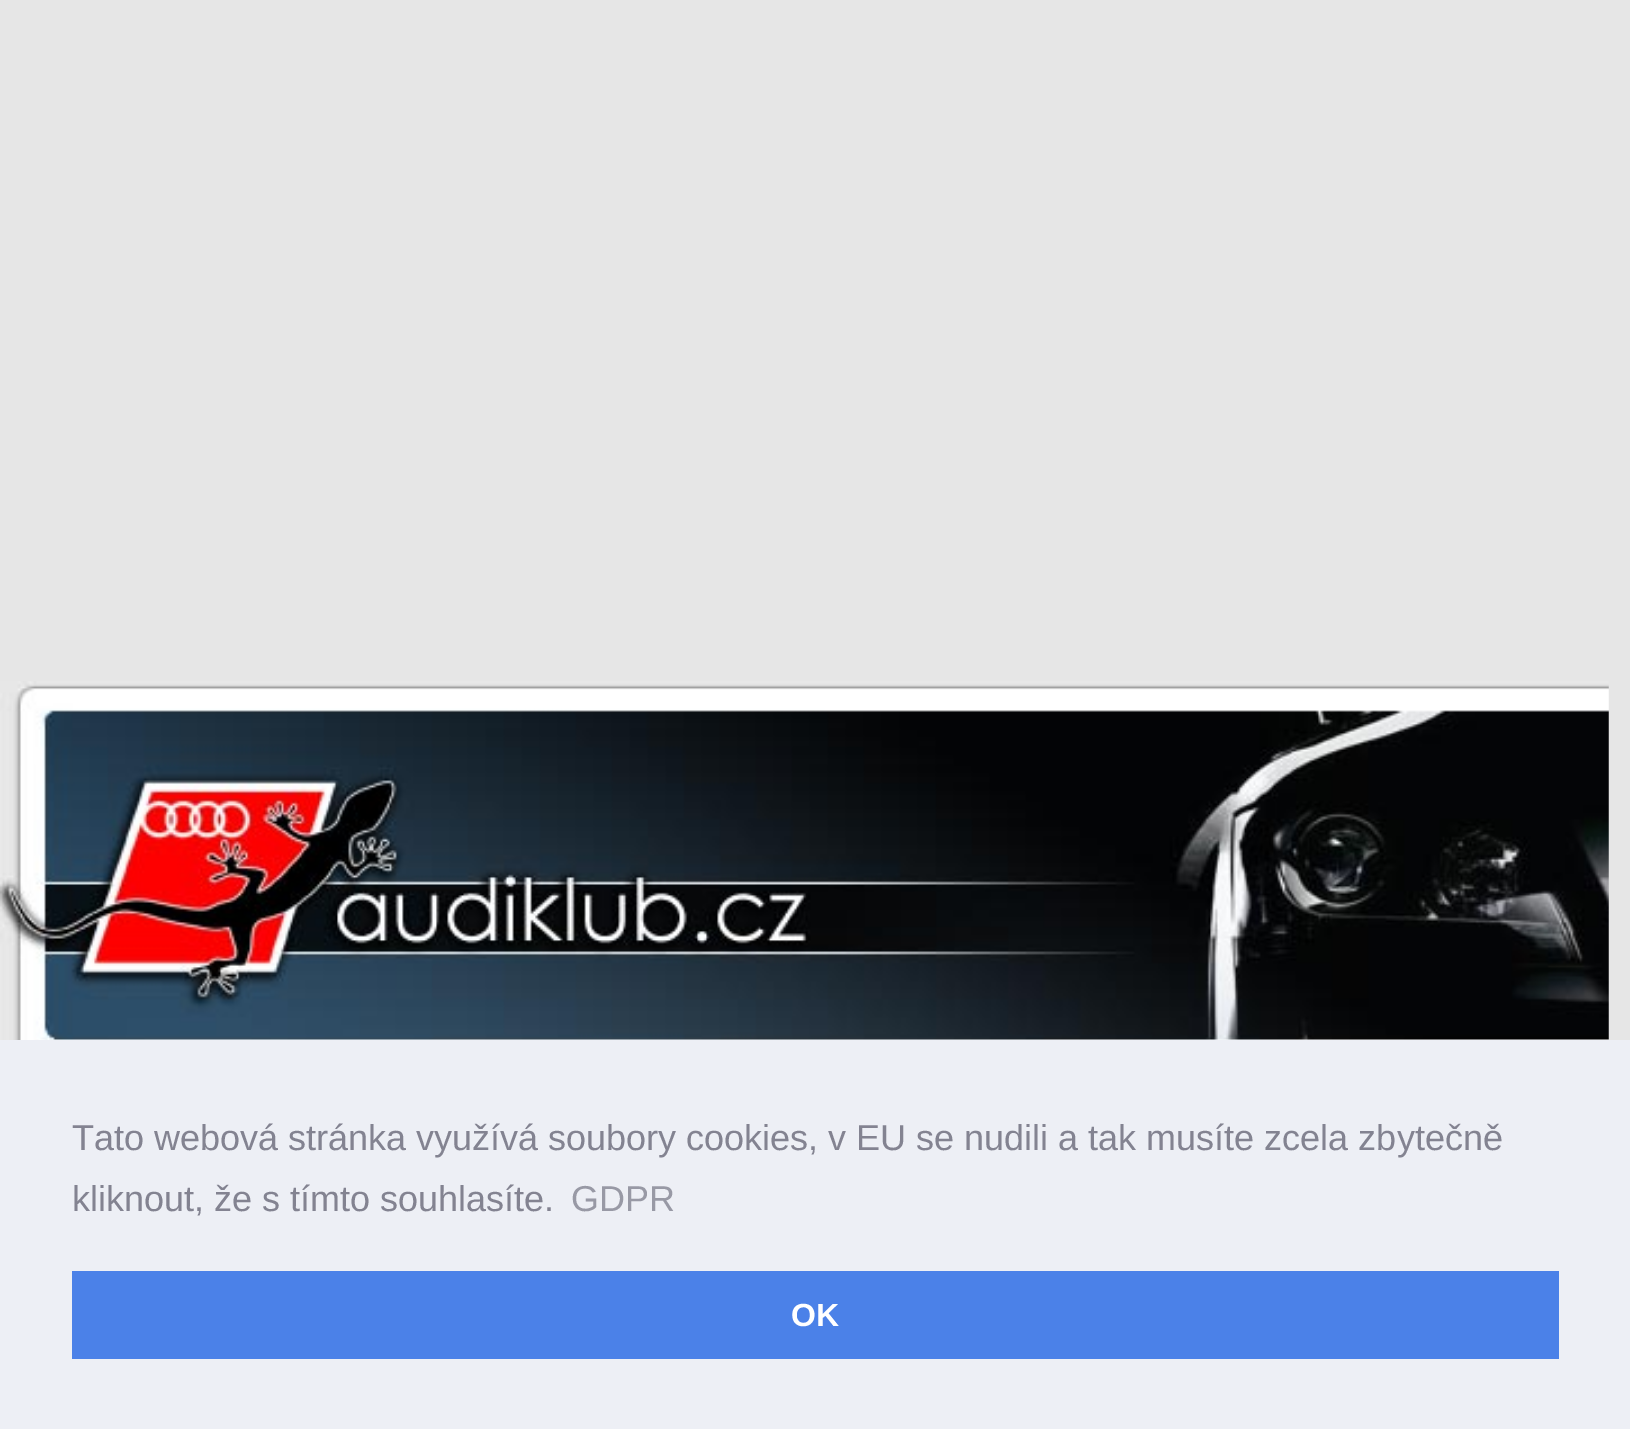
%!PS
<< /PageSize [1630 1429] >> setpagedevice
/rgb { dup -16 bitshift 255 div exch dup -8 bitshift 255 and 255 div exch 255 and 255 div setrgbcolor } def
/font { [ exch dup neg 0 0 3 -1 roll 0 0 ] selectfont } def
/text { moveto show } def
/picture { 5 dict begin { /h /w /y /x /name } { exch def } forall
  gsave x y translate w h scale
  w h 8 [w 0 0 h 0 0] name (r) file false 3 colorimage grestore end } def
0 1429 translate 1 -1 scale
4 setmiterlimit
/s1 { /LiberationSans-Regular 36 font 16#838391 rgb } def
/s2 { /LiberationSans-Regular 36 font 16#9899A5 rgb } def
/s3 { /LiberationSans-Bold 32 font 16#FFFFFF rgb } def
16#E6E6E6 rgb
0 0 1630 1429 rectfill
(pic1.raw) 0 681 1609 359 picture
16#EDEFF5 rgb
0 1040 1630 389 rectfill
s1
(Tato webová stránka využívá soubory cookies, v EU se nudili a tak musíte zcela zbytečně) 72 1150 text
(kliknout, že s tímto souhlasíte.) 72 1211 text
s2
(GDPR) 571 1211 text
16#4B81E8 rgb
72 1271 1487 88 rectfill
s3
(OK) 791 1326 text
showpage
